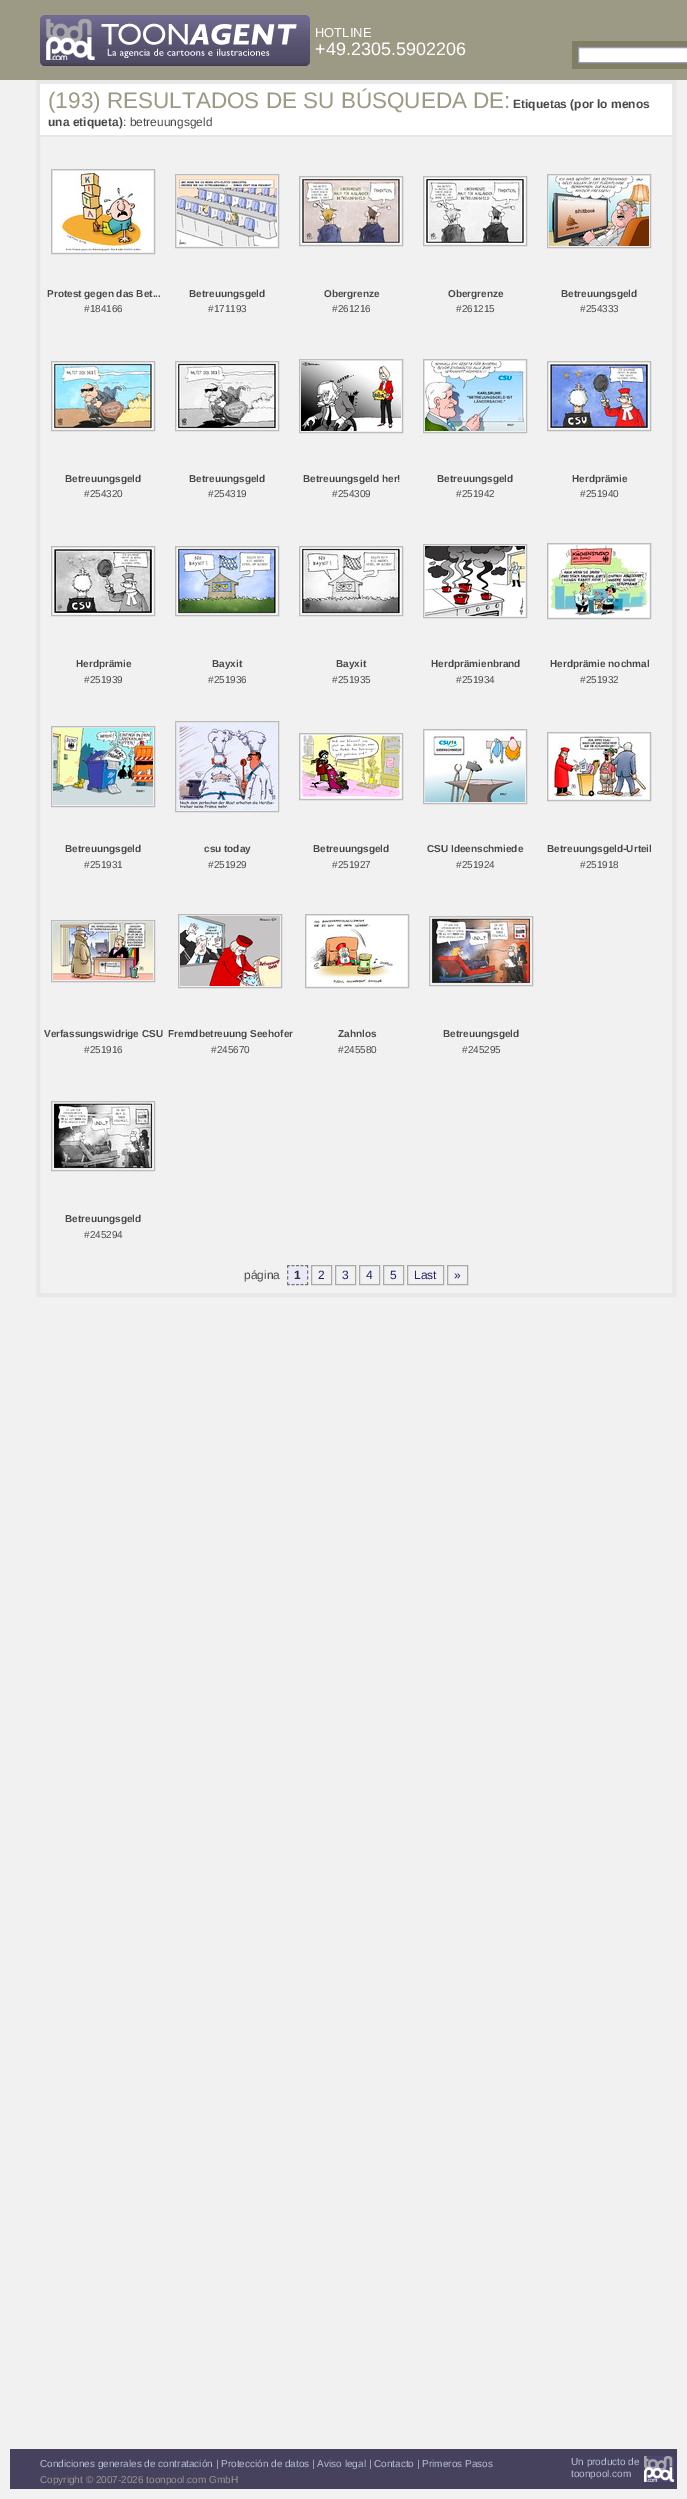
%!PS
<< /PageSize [687 2499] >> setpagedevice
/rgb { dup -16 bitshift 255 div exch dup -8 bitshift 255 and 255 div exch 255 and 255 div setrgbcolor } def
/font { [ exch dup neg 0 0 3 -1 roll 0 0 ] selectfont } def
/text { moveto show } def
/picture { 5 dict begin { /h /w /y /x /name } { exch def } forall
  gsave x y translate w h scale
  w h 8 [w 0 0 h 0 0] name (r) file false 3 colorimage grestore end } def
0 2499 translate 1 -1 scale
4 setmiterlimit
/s1 { /LiberationSans-Regular 13 font 16#FFFFFF rgb } def
/s2 { /LiberationSans-Regular 18 font 16#FFFFFF rgb } def
/s3 { /LiberationSans-Regular 22.5 font 16#9C9984 rgb } def
/s4 { /LiberationSans-Bold 12 font 16#494949 rgb } def
/s5 { /LiberationSans-Regular 12 font 16#494949 rgb } def
/s6 { /LiberationSans-Bold 10 font 16#494949 rgb } def
/s7 { /LiberationSans-Regular 10 font 16#494949 rgb } def
/s8 { /LiberationSans-Bold 12 font 16#333333 rgb } def
/s9 { /LiberationSans-Regular 12 font 16#1D246C rgb } def
/s10 { /LiberationSans-Regular 10 font 16#B6C2D8 rgb } def
/s11 { /LiberationSans-Regular 10 font 16#999999 rgb } def
16#F1F1F1 rgb
0 0 687 2499 rectfill
16#9C9984 rgb
0 0 687 80 rectfill
(pic1.raw) 40 15 270 51 picture
s1
(HOTLINE) 315 37 text
s2
(+49.2305.5902206) 315 55 text
16#827E63 rgb
572 41 115 28 rectfill
16#FFFFFF rgb
578.5 47.5 moveto 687.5 47.5 lineto 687.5 62.5 lineto 578.5 62.5 lineto closepath gsave fill grestore
16#999CBB rgb
stroke
16#E8E8E8 rgb
4 setlinewidth
38 82 636 1213 rectstroke
16#FFFFFF rgb
40 84 632 51 rectfill
s3
(\(193\) RESULTADOS DE SU BÚSQUEDA DE:) 48 108 text
s4
(Etiquetas \(por lo menos) 513 108 text
(una etiqueta\)) 48 126 text
s5
(: betreuungsgeld) 123 126 text
16#E8E8E8 rgb
40 135 632 2 rectfill
16#BBBBBB rgb
1 setlinewidth
51.5 169.5 103 84 rectstroke
(pic2.raw) 53 171 100 81 picture
s6
(Protest gegen das Bet...) 47 297 text
s7
(#184166) 84 312 text
16#BBBBBB rgb
175.5 174.5 103 73 rectstroke
(pic3.raw) 177 176 100 70 picture
s6
(Betreuungsgeld) 189 297 text
s7
(#171193) 208 312 text
16#BBBBBB rgb
299.5 176.5 103 69 rectstroke
(pic4.raw) 301 178 100 66 picture
s6
(Obergrenze) 324 297 text
s7
(#261216) 332 312 text
16#BBBBBB rgb
423.5 176.5 103 69 rectstroke
(pic5.raw) 425 178 100 66 picture
s6
(Obergrenze) 448 297 text
s7
(#261215) 456 312 text
16#BBBBBB rgb
547.5 174.5 103 73 rectstroke
(pic6.raw) 549 176 100 70 picture
s6
(Betreuungsgeld) 561 297 text
s7
(#254333) 580 312 text
16#BBBBBB rgb
51.5 361.5 103 69 rectstroke
(pic7.raw) 53 363 100 66 picture
s6
(Betreuungsgeld) 65 482 text
s7
(#254320) 84 497 text
16#BBBBBB rgb
175.5 361.5 103 69 rectstroke
(pic8.raw) 177 363 100 66 picture
s6
(Betreuungsgeld) 189 482 text
s7
(#254319) 208 497 text
16#BBBBBB rgb
299.5 359.5 103 73 rectstroke
(pic9.raw) 301 361 100 70 picture
s6
(Betreuungsgeld her!) 303 482 text
s7
(#254309) 332 497 text
16#BBBBBB rgb
423.5 359.5 103 73 rectstroke
(pic10.raw) 425 361 100 70 picture
s6
(Betreuungsgeld) 437 482 text
s7
(#251942) 456 497 text
16#BBBBBB rgb
547.5 361.5 103 69 rectstroke
(pic11.raw) 549 363 100 66 picture
s6
(Herdprämie) 572 482 text
s7
(#251940) 580 497 text
16#BBBBBB rgb
51.5 546.5 103 69 rectstroke
(pic12.raw) 53 548 100 66 picture
s6
(Herdprämie) 76 667 text
s7
(#251939) 84 683 text
16#BBBBBB rgb
175.5 546.5 103 69 rectstroke
(pic13.raw) 177 548 100 66 picture
s6
(Bayxit) 212 667 text
s7
(#251936) 208 683 text
16#BBBBBB rgb
299.5 546.5 103 69 rectstroke
(pic14.raw) 301 548 100 66 picture
s6
(Bayxit) 336 667 text
s7
(#251935) 332 683 text
16#BBBBBB rgb
423.5 544.5 103 73 rectstroke
(pic15.raw) 425 546 100 70 picture
s6
(Herdprämienbrand) 431 667 text
s7
(#251934) 456 683 text
16#BBBBBB rgb
547.5 543.5 103 75 rectstroke
(pic16.raw) 549 545 100 72 picture
s6
(Herdprämie nochmal) 550 667 text
s7
(#251932) 580 683 text
16#BBBBBB rgb
51.5 726.5 103 80 rectstroke
(pic17.raw) 53 728 100 77 picture
s6
(Betreuungsgeld) 65 852 text
s7
(#251931) 84 868 text
16#BBBBBB rgb
175.5 721.5 103 90 rectstroke
(pic18.raw) 177 723 100 87 picture
s6
(csu today) 204 852 text
s7
(#251929) 208 868 text
16#BBBBBB rgb
299.5 733.5 103 66 rectstroke
(pic19.raw) 301 735 100 63 picture
s6
(Betreuungsgeld) 313 852 text
s7
(#251927) 332 868 text
16#BBBBBB rgb
423.5 729.5 103 74 rectstroke
(pic20.raw) 425 731 100 71 picture
s6
(CSU Ideenschmiede) 427 852 text
s7
(#251924) 456 868 text
16#BBBBBB rgb
547.5 732.5 103 68 rectstroke
(pic21.raw) 549 734 100 65 picture
s6
(Betreuungsgeld-Urteil) 547 852 text
s7
(#251918) 580 868 text
16#BBBBBB rgb
51.5 920.5 103 61 rectstroke
(pic22.raw) 53 922 100 58 picture
s6
(Verfassungswidrige CSU) 44 1037 text
s7
(#251916) 84 1053 text
16#BBBBBB rgb
178.5 914.5 103 73 rectstroke
(pic23.raw) 180 916 100 70 picture
s6
(Fremdbetreuung Seehofer) 168 1037 text
s7
(#245670) 211 1053 text
16#BBBBBB rgb
305.5 914.5 103 73 rectstroke
(pic24.raw) 307 916 100 70 picture
s6
(Zahnlos) 338 1037 text
s7
(#245580) 338 1053 text
16#BBBBBB rgb
429.5 916.5 103 69 rectstroke
(pic25.raw) 431 918 100 66 picture
s6
(Betreuungsgeld) 443 1037 text
s7
(#245295) 462 1053 text
16#BBBBBB rgb
51.5 1101.5 103 69 rectstroke
(pic26.raw) 53 1103 100 66 picture
s6
(Betreuungsgeld) 65 1222 text
s7
(#245294) 84 1238 text
s5
(página) 244 1279 text
16#E9EAF5 rgb
287 1265 21 20 rectfill
s8
(1) 294 1279 text
16#777777 rgb
[3 1.5] 0 setdash
287 1265.5 moveto 308 1265.5 lineto stroke
[3 2.67] 0 setdash
307.5 1265 moveto 307.5 1285 lineto stroke
[3 1.5] 0 setdash
287 1284.5 moveto 308 1284.5 lineto stroke
[3 2.67] 0 setdash
287.5 1265 moveto 287.5 1285 lineto stroke
16#AAAAAA rgb
[] 0 setdash
311.5 1265.5 20 19 rectstroke
s9
(2) 318 1279 text
16#AAAAAA rgb
335.5 1265.5 20 19 rectstroke
s9
(3) 342 1279 text
16#AAAAAA rgb
359.5 1265.5 20 19 rectstroke
s9
(4) 366 1279 text
16#AAAAAA rgb
383.5 1265.5 20 19 rectstroke
s9
(5) 390 1279 text
16#AAAAAA rgb
407.5 1265.5 36 19 rectstroke
s9
(Last) 414 1279 text
16#AAAAAA rgb
447.5 1265.5 20 19 rectstroke
s9
(») 454 1279 text
16#46415C rgb
10 2449 667 40 rectfill
s10
(Condiciones generales de contratación | Protección de datos | Aviso legal | Contacto | Primeros Pasos) 40 2467 text
s11
(Copyright © 2007-2026 toonpool.com GmbH) 40 2483 text
s10
(Un producto de) 571 2465 text
(pic27.raw) 644 2456 30 26 picture
(toonpool.com) 571 2477 text
showpage
